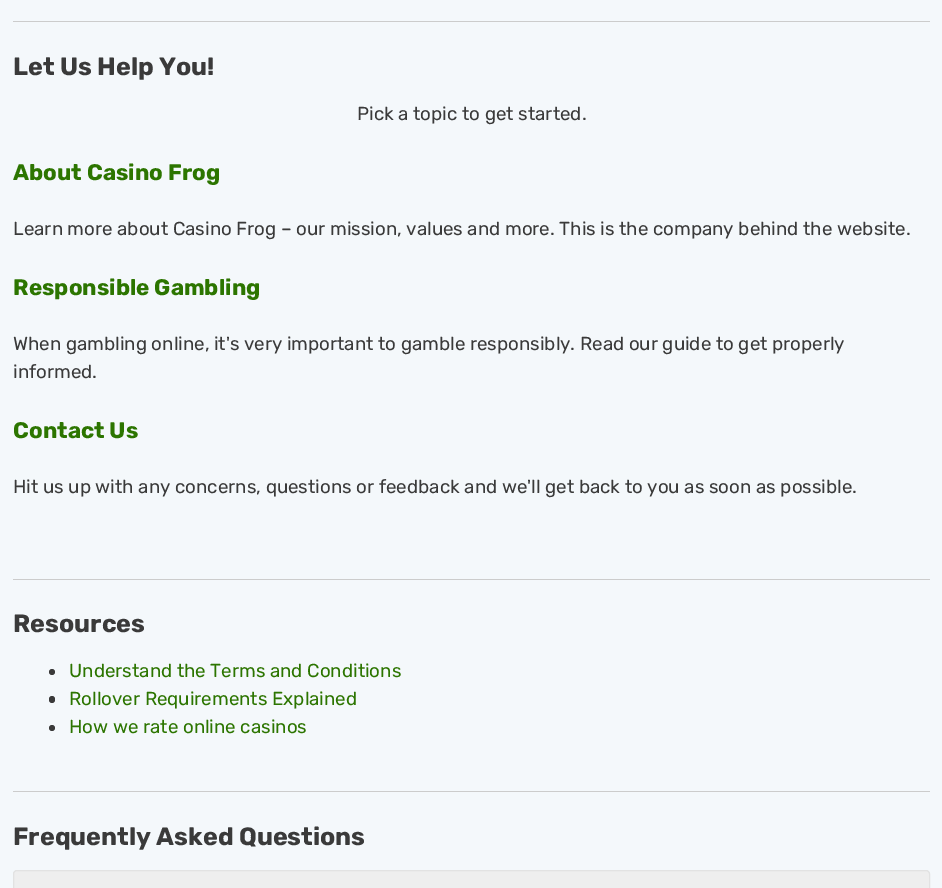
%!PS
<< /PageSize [942 888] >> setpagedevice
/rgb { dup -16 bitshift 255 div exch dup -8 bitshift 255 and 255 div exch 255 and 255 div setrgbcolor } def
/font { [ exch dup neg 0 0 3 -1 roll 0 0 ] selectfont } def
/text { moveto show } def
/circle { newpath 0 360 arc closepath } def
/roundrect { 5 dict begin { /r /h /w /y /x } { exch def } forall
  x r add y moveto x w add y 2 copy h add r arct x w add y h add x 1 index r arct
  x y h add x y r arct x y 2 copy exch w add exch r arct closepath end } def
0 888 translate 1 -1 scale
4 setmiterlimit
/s1 { /Rubik-Bold 25 font 16#3A3A3A rgb } def
/s2 { /Rubik-Regular 18.75 font 16#3A3A3A rgb } def
/s3 { /Rubik-Bold 22.5 font 16#2C7500 rgb } def
/s4 { /Rubik-Regular 18.75 font 16#2C7500 rgb } def
16#F4F8FB rgb
0 0 942 888 rectfill
16#CCCCCC rgb
13 21 917 1 rectfill
s1
(Let Us Help You!) 13 75 text
s2
(Pick a topic to get started.) 357 120 text
s3
(About Casino Frog) 13 180 text
s2
(Learn more about Casino Frog – our mission, values and more. This is the company behind the website.) 13 235 text
s3
(Responsible Gambling) 13 295 text
s2
(When gambling online, it's very important to gamble responsibly. Read our guide to get properly) 13 350 text
(informed.) 13 378 text
s3
(Contact Us) 13 438 text
s2
(Hit us up with any concerns, questions or feedback and we'll get back to you as soon as possible.) 13 493 text
16#CCCCCC rgb
13 579 917 1 rectfill
s1
(Resources) 13 632 text
52 672 3 circle fill
s4
(Understand the Terms and Conditions) 69 677 text
16#3A3A3A rgb
49 696 6 7 3 roundrect fill
s4
(Rollover Requirements Explained) 69 705 text
16#3A3A3A rgb
52 728 3 circle fill
s4
(How we rate online casinos) 69 733 text
16#CCCCCC rgb
13 791 917 1 rectfill
s1
(Frequently Asked Questions) 13 845 text
16#EEEEEE rgb
13.5 870.5 916 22 3.5 roundrect gsave fill grestore
16#E2E2E2 rgb
stroke
showpage
